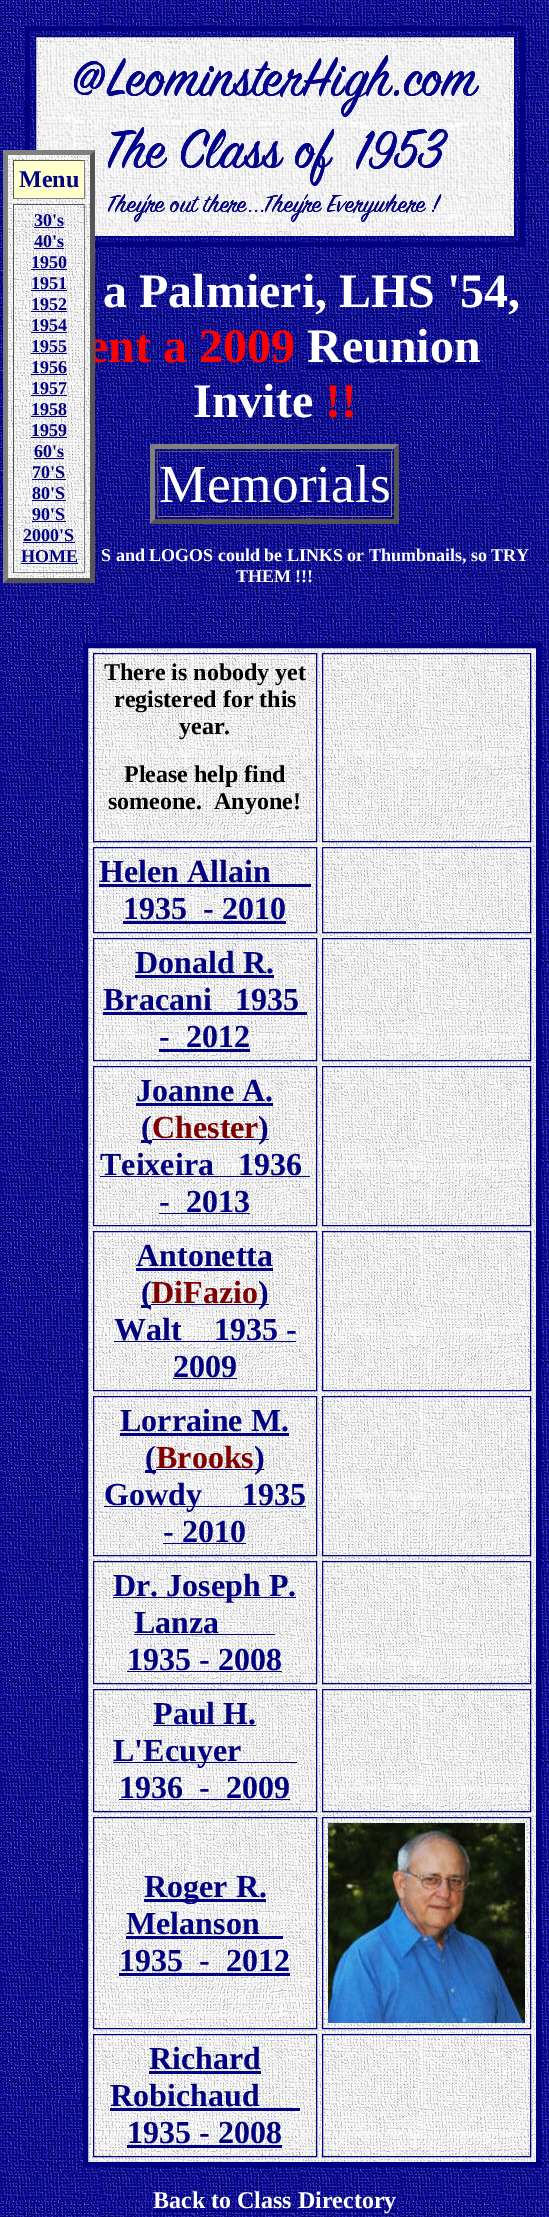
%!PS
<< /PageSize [549 2217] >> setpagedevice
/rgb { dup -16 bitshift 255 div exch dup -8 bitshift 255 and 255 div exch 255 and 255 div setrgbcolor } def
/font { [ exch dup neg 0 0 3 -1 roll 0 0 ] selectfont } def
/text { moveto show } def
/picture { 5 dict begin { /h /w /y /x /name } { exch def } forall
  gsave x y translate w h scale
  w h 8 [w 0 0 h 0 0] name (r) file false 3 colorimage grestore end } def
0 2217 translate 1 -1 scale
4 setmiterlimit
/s1 { /LiberationSerif-Bold 48 font 16#FF0000 rgb } def
/s2 { /LiberationSerif-Bold 24 font 16#000080 rgb } def
/s3 { /LiberationSerif-Bold 18 font 16#000080 rgb } def
/s4 { /LiberationSerif-Bold 48 font 16#FFFFFF rgb } def
/s5 { /LiberationSerif-Regular 53.5 font 16#FFFFFF rgb } def
/s6 { /LiberationSerif-Bold 18 font 16#FFFFFF rgb } def
/s7 { /LiberationSerif-Bold 24 font 16#000000 rgb } def
/s8 { /LiberationSerif-Bold 32 font 16#000080 rgb } def
/s9 { /LiberationSerif-Bold 32 font 16#800000 rgb } def
/s10 { /LiberationSerif-Bold 24 font 16#FFFFFF rgb } def
16#FFFFFF rgb
0 0 549 2217 rectfill
(pic1.raw) 0 0 549 2217 picture
16#000080 rgb
5 setlinewidth
27.5 28.5 495 216 rectstroke
(pic2.raw) 36 37 478 199 picture
1 setlinewidth
35.5 36.5 479 200 rectstroke
(pic3.raw) 41 42 468 189 picture
s1
(ent a 2009) 87 362 text
(pic4.raw) 3 150 92 433 picture
16#808080 rgb
3 150 moveto 95 150 lineto 90 155 lineto 8 155 lineto closepath fill
16#555555 rgb
95 150 moveto 95 583 lineto 90 578 lineto 90 155 lineto closepath fill
95 583 moveto 3 583 lineto 8 578 lineto 90 578 lineto closepath fill
16#808080 rgb
3 583 moveto 3 150 lineto 8 155 lineto 8 578 lineto closepath fill
16#FFFFCC rgb
14 161 70 37 rectfill
16#555555 rgb
13 160 72 1 rectfill
16#808080 rgb
84 160 1 39 rectfill
13 198 72 1 rectfill
16#555555 rgb
13 160 1 39 rectfill
s2
(Menu) 19 187 text
(pic5.raw) 14 205 70 367 picture
16#555555 rgb
13 204 72 1 rectfill
16#808080 rgb
84 204 1 369 rectfill
13 572 72 1 rectfill
16#555555 rgb
13 204 1 369 rectfill
s3
(30's) 34 226 text
34 227 30 1 rectfill
(40's) 34 247 text
34 248 30 1 rectfill
(1950) 31 268 text
31 269 36 1 rectfill
(1951) 31 289 text
31 290 36 1 rectfill
(1952) 31 310 text
31 311 36 1 rectfill
(1954) 31 331 text
31 332 36 1 rectfill
(1955) 31 352 text
31 353 36 1 rectfill
(1956) 31 373 text
31 374 36 1 rectfill
(1957) 31 394 text
31 395 36 1 rectfill
(1958) 31 415 text
31 416 36 1 rectfill
(1959) 31 436 text
31 437 36 1 rectfill
(60's) 34 457 text
34 458 30 1 rectfill
(70'S) 32 478 text
32 479 34 1 rectfill
(80'S) 32 499 text
32 500 34 1 rectfill
(90'S) 32 520 text
32 521 34 1 rectfill
(2000'S) 23 541 text
23 542 52 1 rectfill
(HOME) 21 562 text
21 563 57 1 rectfill
s4
(a Palmieri, LHS '54,) 103 307 text
(Reunion) 307 362 text
16#000080 rgb
307 365 174 4 rectfill
s4
(Invite) 193 417 text
16#000080 rgb
193 418 120 1 rectfill
s1
(!!) 325 417 text
16#808080 rgb
150 444 moveto 399 444 lineto 394 449 lineto 155 449 lineto closepath fill
16#555555 rgb
399 444 moveto 399 524 lineto 394 519 lineto 394 449 lineto closepath fill
399 524 moveto 150 524 lineto 155 519 lineto 394 519 lineto closepath fill
16#808080 rgb
150 524 moveto 150 444 lineto 155 449 lineto 155 519 lineto closepath fill
16#555555 rgb
157 451 235 1 rectfill
16#808080 rgb
391 451 1 66 rectfill
157 516 235 1 rectfill
16#555555 rgb
157 451 1 66 rectfill
s5
(Memorials) 159 502 text
16#000080 rgb
159 503 231 1 rectfill
s6
(S and LOGOS could be LINKS or Thumbnails, so TRY) 101 561 text
(THEM !!!) 236 582 text
(pic6.raw) 88 648 448 1514 picture
16#000080 rgb
5 setlinewidth
85.5 645.5 453 1519 rectstroke
(pic7.raw) 94 654 222 187 picture
1 setlinewidth
93.5 653.5 223 188 rectstroke
s7
(There is nobody yet) 104 680 text
(registered for this) 114 707 text
(year.) 179 734 text
(Please help find) 124 782 text
(someone.  Anyone!) 108 809 text
(pic8.raw) 323 654 207 187 picture
16#000080 rgb
322.5 653.5 208 188 rectstroke
(pic9.raw) 94 848 222 84 picture
93.5 847.5 223 85 rectstroke
s8
(Helen Allain) 99 882 text
99 884 212 3 rectfill
(1935  - 2010) 123 919 text
123 921 163 3 rectfill
(pic10.raw) 323 848 207 84 picture
322.5 847.5 208 85 rectstroke
(pic11.raw) 94 939 222 121 picture
93.5 938.5 223 122 rectstroke
(Donald R.) 135 973 text
135 975 139 3 rectfill
(Bracani   1935) 103 1010 text
103 1012 204 3 rectfill
(-  2012) 159 1047 text
159 1049 91 3 rectfill
(pic12.raw) 323 939 207 121 picture
322.5 938.5 208 122 rectstroke
(pic13.raw) 94 1067 222 158 picture
93.5 1066.5 223 159 rectstroke
(Joanne A.) 136 1101 text
136 1103 137 3 rectfill
141 1140 11 3 rectfill
(\() 141 1138 text
s9
(Chester) 152 1138 text
16#000080 rgb
152 1139 117 1 rectfill
(\)) 258 1138 text
(Teixeira   1936) 100 1175 text
100 1176 210 1 rectfill
(-  2013) 159 1212 text
159 1213 91 1 rectfill
(pic14.raw) 323 1067 207 158 picture
322.5 1066.5 208 159 rectstroke
(pic13.raw) 94 1232 222 158 picture
93.5 1231.5 223 159 rectstroke
(Antonetta) 136 1266 text
136 1268 137 3 rectfill
141 1305 10 3 rectfill
(\() 141 1303 text
151 1304 118 1 rectfill
s9
(DiFazio) 151 1303 text
s8
(\)) 258 1303 text
(Walt    1935 -) 114 1340 text
114 1341 182 1 rectfill
(2009) 173 1377 text
173 1378 64 1 rectfill
(pic14.raw) 323 1232 207 158 picture
322.5 1231.5 208 159 rectstroke
(pic13.raw) 94 1397 222 158 picture
93.5 1396.5 223 159 rectstroke
(Lorraine M.) 120 1431 text
120 1433 169 3 rectfill
145 1470 11 3 rectfill
(\() 145 1468 text
s9
(Brooks) 156 1468 text
16#000080 rgb
156 1469 108 1 rectfill
(\)) 254 1468 text
104 1506 202 1 rectfill
(Gowdy     1935) 104 1505 text
(- 2010) 163 1542 text
163 1543 83 1 rectfill
(pic14.raw) 323 1397 207 158 picture
322.5 1396.5 208 159 rectstroke
(pic11.raw) 94 1562 222 121 picture
93.5 1561.5 223 122 rectstroke
113 1597 183 1 rectfill
(Dr. Joseph P.) 113 1596 text
(Lanza) 134 1633 text
134 1634 141 1 rectfill
(1935 - 2008) 127 1670 text
127 1671 155 1 rectfill
(pic12.raw) 323 1562 207 121 picture
322.5 1561.5 208 122 rectstroke
(pic11.raw) 94 1690 222 121 picture
93.5 1689.5 223 122 rectstroke
(Paul H.) 153 1724 text
153 1725 103 1 rectfill
113 1762 184 1 rectfill
(L'Ecuyer) 113 1761 text
(1936  -  2009) 119 1798 text
119 1799 171 1 rectfill
(pic12.raw) 323 1690 207 121 picture
322.5 1689.5 208 122 rectstroke
(pic15.raw) 94 1818 222 210 picture
93.5 1817.5 223 211 rectstroke
144 1899 122 3 rectfill
(Roger R.) 144 1897 text
(Melanson) 126 1934 text
126 1936 157 3 rectfill
(1935  -) 119 1971 text
119 1973 171 3 rectfill
(2012) 226 1971 text
(pic16.raw) 323 1818 207 210 picture
322.5 1817.5 208 211 rectstroke
(pic17.raw) 328 1823 197 200 picture
(pic11.raw) 94 2035 222 121 picture
93.5 2034.5 223 122 rectstroke
(Richard) 149 2069 text
149 2071 112 3 rectfill
(Robichaud) 110 2106 text
110 2108 190 3 rectfill
(1935 - 2008) 127 2143 text
127 2145 155 3 rectfill
(pic12.raw) 323 2035 207 121 picture
322.5 2034.5 208 122 rectstroke
153 2210 243 2 rectfill
s10
(Back to Class Directory) 153 2208 text
showpage
